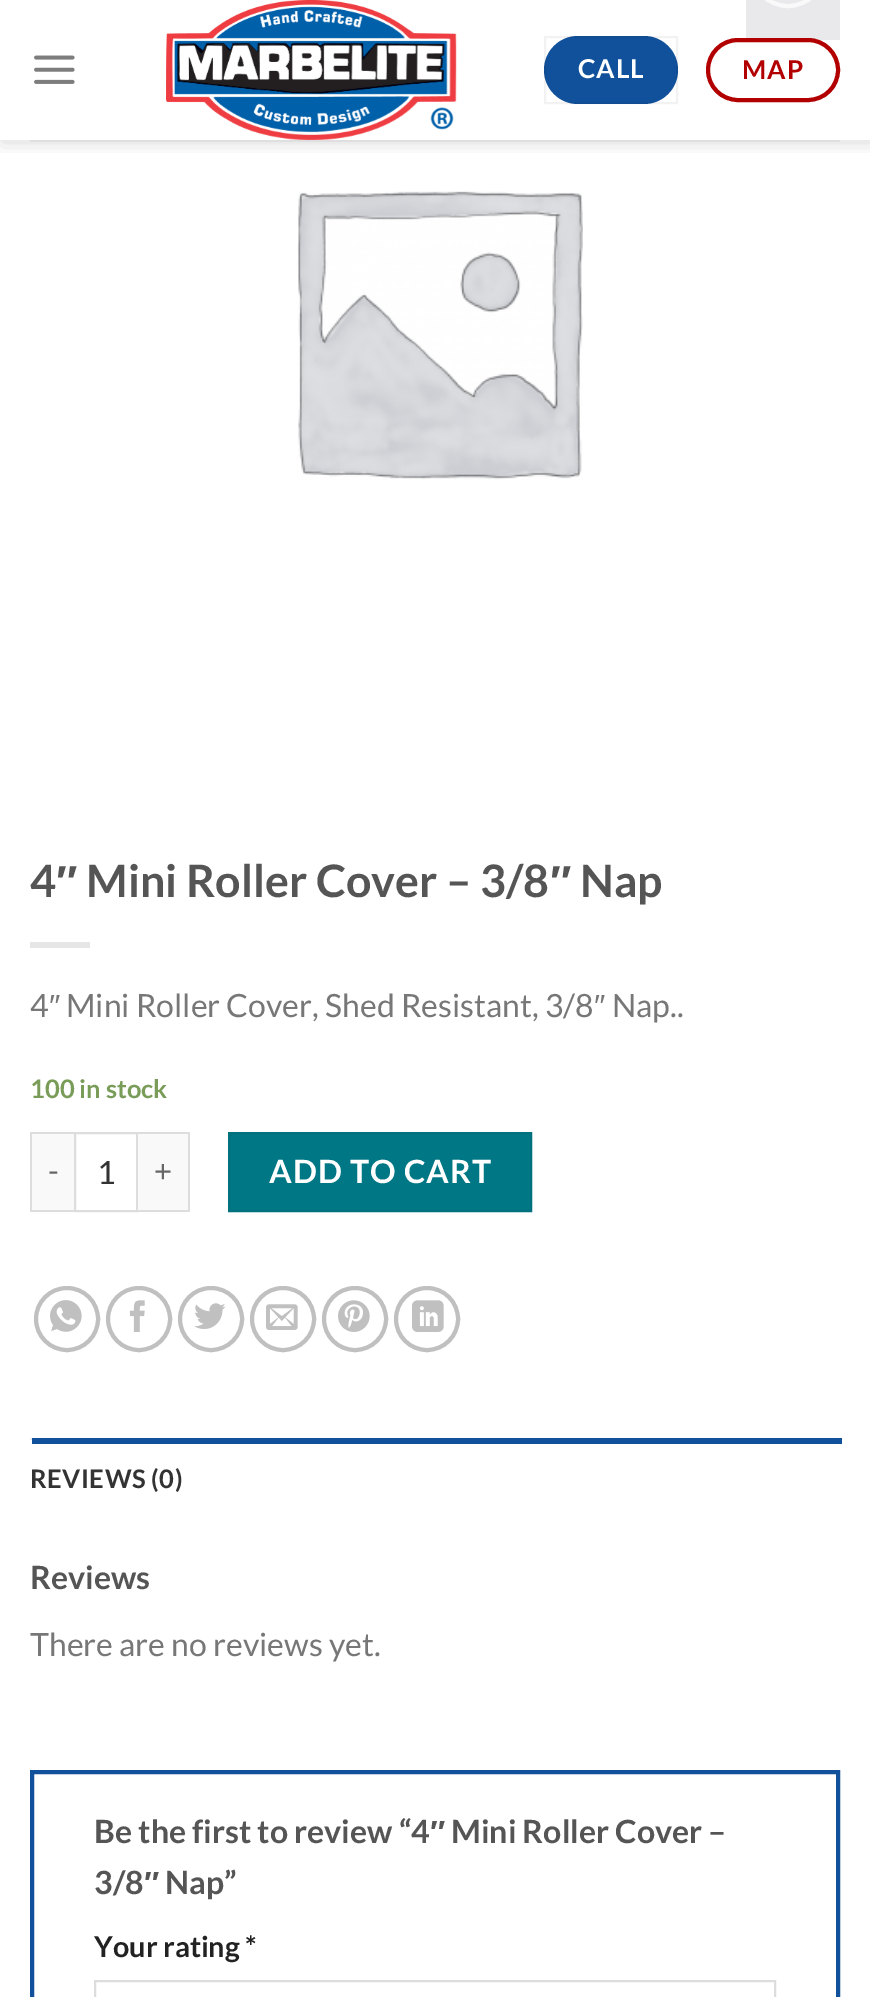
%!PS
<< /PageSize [870 1997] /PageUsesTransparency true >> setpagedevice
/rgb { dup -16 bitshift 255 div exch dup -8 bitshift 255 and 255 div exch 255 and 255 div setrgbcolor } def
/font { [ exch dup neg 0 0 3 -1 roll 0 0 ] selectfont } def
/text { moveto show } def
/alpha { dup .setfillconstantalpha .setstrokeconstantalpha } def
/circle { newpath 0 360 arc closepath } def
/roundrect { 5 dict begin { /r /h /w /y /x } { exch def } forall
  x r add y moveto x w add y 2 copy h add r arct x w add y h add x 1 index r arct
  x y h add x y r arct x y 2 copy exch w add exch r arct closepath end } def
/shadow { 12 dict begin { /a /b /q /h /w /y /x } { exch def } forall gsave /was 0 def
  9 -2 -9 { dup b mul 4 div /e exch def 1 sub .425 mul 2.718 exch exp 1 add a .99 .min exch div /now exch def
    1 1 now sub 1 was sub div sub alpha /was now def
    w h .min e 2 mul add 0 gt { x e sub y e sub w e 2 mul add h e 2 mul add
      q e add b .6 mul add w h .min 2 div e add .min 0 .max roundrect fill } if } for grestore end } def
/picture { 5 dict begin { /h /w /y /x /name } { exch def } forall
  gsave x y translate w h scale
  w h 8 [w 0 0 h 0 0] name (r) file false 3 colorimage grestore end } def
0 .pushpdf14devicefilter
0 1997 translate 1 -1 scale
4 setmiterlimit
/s1 { /Lato-Bold 44.75 font 16#555555 rgb } def
/s2 { /LiberationSans-Bold 44.75 font 16#555555 rgb } def
/s3 { /Lato-Regular 32 font 16#777777 rgb } def
/s4 { /LiberationSans-Regular 32 font 16#777777 rgb } def
/s5 { /Lato-Bold 25.5 font 16#7A9C59 rgb } def
/s6 { /Lato-Regular 32 font 16#333333 rgb } def
/s7 { /Lato-Bold 32 font 16#555555 rgb } def
/s8 { /LiberationSans-Bold 32 font 16#555555 rgb } def
/s9 { /Lato-Bold 28.75 font 16#222222 rgb } def
16#FFFFFF rgb
0 0 870 1997 rectfill
16#E9E9EC rgb
746 0 94 40 rectfill
16#F9F9F9 rgb
4 setlinewidth
752 -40 72 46 36 roundrect stroke
gsave
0 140 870 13 rectclip
16#000000 rgb
2 2 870 140 0 10 0.15 shadow
grestore
(pic1.raw) 34 55 41 29 picture
(pic2.raw) 166 0 291 140 picture
16#11519B rgb
544 36 134 68 34 roundrect fill
0.05 alpha
16#000000 rgb
2 setlinewidth
545 37 132 66 rectstroke
/Lato-Bold 26 font
1 alpha
16#FFFFFF rgb
578 78 moveto 1 0 (CALL) ashow
16#B20000 rgb
4 setlinewidth
708 40 130 60 30 roundrect stroke
742 79 moveto 1 0 (MAP) ashow
16#DFDFDF rgb
30 140 810 2 rectfill
(pic3.raw) 297 191 286 289 picture
s1
(4) 30 897 text
s2
(″) 56 897 text
s1
(Mini Roller Cover – 3/8) 86 897 text
s2
(″) 550 897 text
s1
(Nap) 580 897 text
16#E6E6E6 rgb
30 942 60 6 rectfill
s3
(4) 30 1017 text
s4
(″) 49 1017 text
s3
(Mini Roller Cover, Shed Resistant, 3/8) 66 1017 text
s4
(″) 594 1017 text
s3
(Nap..) 612 1017 text
s5
(100 in stock) 30 1098 text
16#F9F9F9 rgb
32 1134 42 76 rectfill
16#DDDDDD rgb
30 1132 44 2 rectfill
30 1210 44 2 rectfill
30 1132 2 80 rectfill
/Lato-Regular 31 font
16#666666 rgb
48 1182 moveto 1 0 (-) ashow
16#DDDDDD rgb
2 setlinewidth
75 1133 62 78 rectstroke
s6
(1) 97 1184 text
16#F9F9F9 rgb
138 1134 50 76 rectfill
16#DDDDDD rgb
138 1132 52 2 rectfill
188 1132 2 80 rectfill
138 1210 52 2 rectfill
/Lato-Regular 31 font
16#666666 rgb
154 1182 moveto 1 0 (+) ashow
16#007784 rgb
229 1133 moveto 531 1133 lineto 531 1211 lineto 229 1211 lineto closepath gsave fill grestore
16#00717D rgb
stroke
/Lato-Bold 32 font
16#FFFFFF rgb
269 1183 moveto 1 0 (ADD TO CART) ashow
16#C0C0C0 rgb
4 setlinewidth
67 1319 31 circle stroke
(pic4.raw) 50 1300 32 32 picture
139 1319 31 circle stroke
(pic5.raw) 129 1300 16 32 picture
211 1319 31 circle stroke
(pic6.raw) 194 1303 32 26 picture
283 1319 31 circle stroke
(pic7.raw) 266 1304 32 26 picture
355 1319 31 circle stroke
(pic8.raw) 338 1300 32 32 picture
427 1319 31 circle stroke
(pic9.raw) 412 1300 32 32 picture
16#ECECEC rgb
30 1438 2 2 rectfill
16#11519B rgb
32 1438 810 6 rectfill
/Lato-Bold 25.5 font
16#333333 rgb
30 1488 moveto 0.5 0 (REVIEWS \(0\)) ashow
s7
(Reviews) 30 1589 text
s3
(There are no reviews yet.) 30 1656 text
16#11519B rgb
32 1772 806 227 rectstroke
s7
(Be the first to review “4) 94 1843 text
s8
(″) 430 1843 text
s7
(Mini Roller Cover –) 451 1843 text
(3/8) 94 1894 text
s8
(″) 144 1894 text
s7
(Nap”) 165 1894 text
s9
(Your rating *) 94 1957 text
16#DDDDDD rgb
2 setlinewidth
95 1981 680 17 rectstroke
.poppdf14devicefilter showpage
